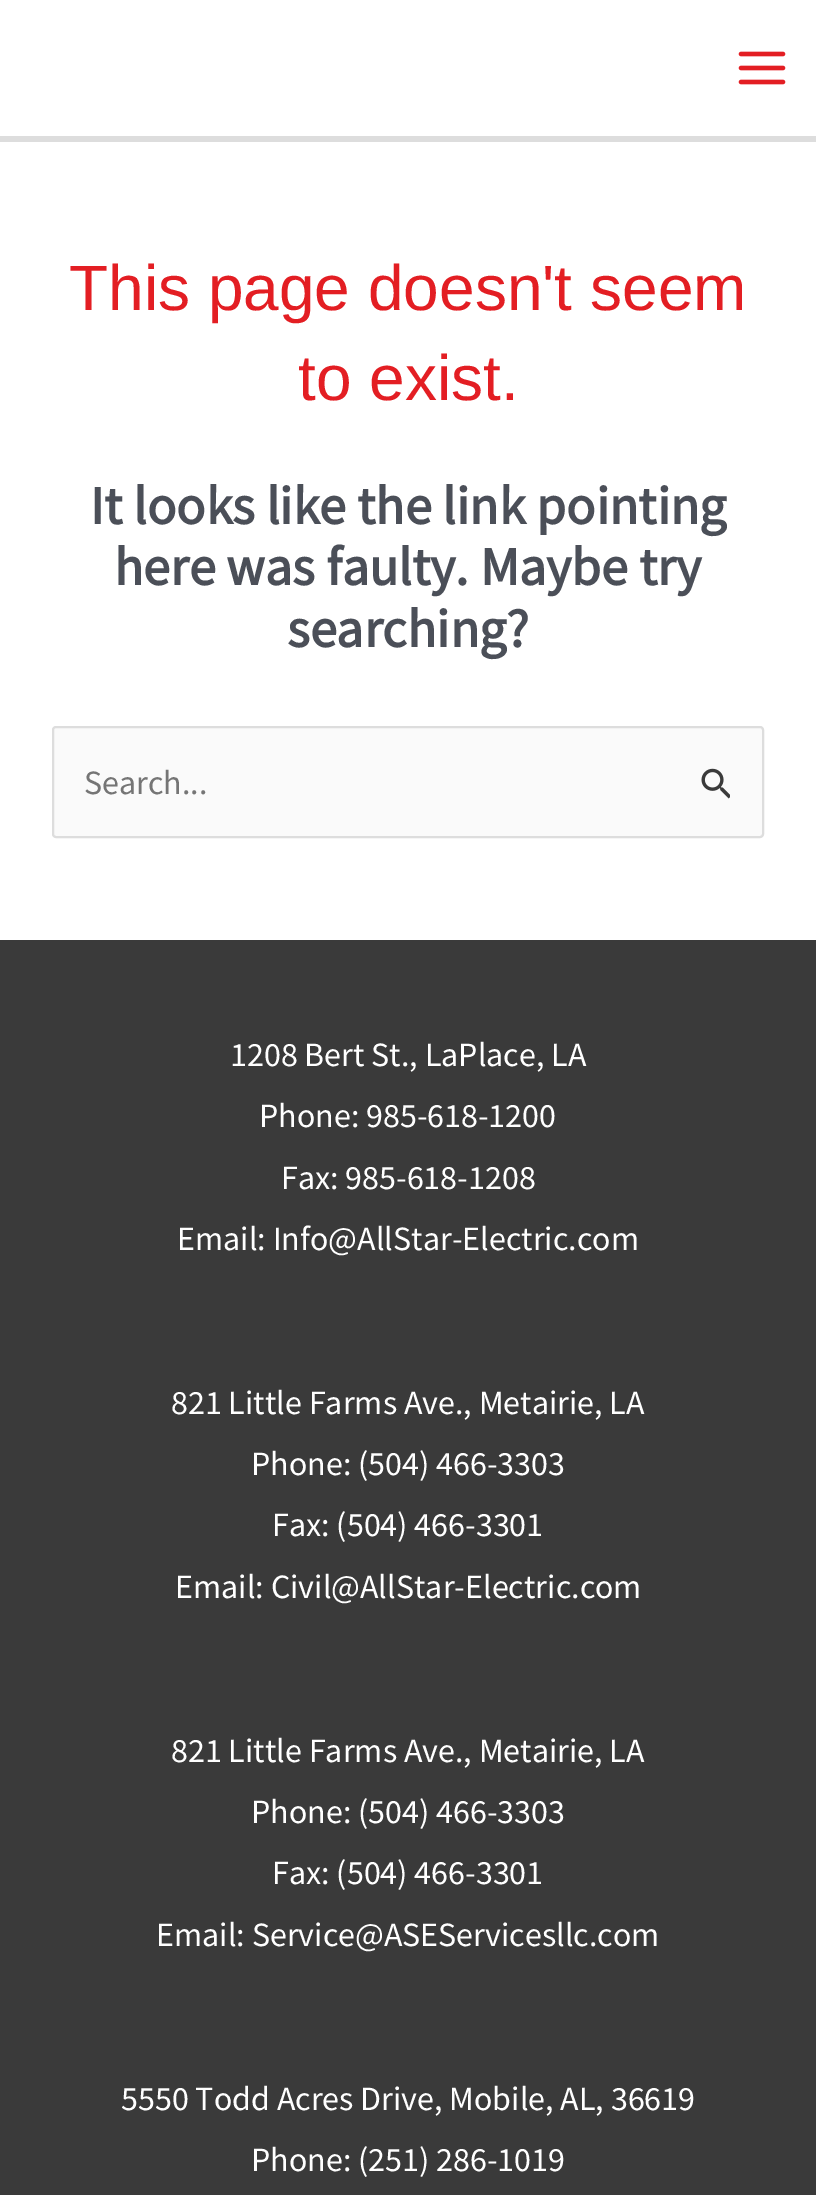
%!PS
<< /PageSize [816 2195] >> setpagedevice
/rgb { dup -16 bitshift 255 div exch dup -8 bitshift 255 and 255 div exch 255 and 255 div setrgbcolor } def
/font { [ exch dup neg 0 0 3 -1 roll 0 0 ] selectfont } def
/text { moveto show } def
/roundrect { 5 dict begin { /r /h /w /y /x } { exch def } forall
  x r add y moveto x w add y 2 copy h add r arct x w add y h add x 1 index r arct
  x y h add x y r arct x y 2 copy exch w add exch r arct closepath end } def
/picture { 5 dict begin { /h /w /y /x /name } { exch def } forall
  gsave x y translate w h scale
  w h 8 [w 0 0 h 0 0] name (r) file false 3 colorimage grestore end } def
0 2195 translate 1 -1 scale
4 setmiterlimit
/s1 { /LiberationSans-Regular 64 font 16#E31E23 rgb } def
/s2 { /SourceSansPro-Bold 54 font 16#4B4F58 rgb } def
/s3 { /SourceSansPro-Regular 34 font 16#757575 rgb } def
/s4 { /SourceSansPro-Regular 34 font 16#FFFFFF rgb } def
16#FFFFFF rgb
0 0 816 2195 rectfill
16#DDDDDD rgb
0 136 816 6 rectfill
(pic1.raw) 738 51 48 34 picture
s1
(This page doesn't seem) 69 310 text
(to exist.) 298 400 text
s2
(It looks like the link pointing) 90 524 text
(here was faulty. Maybe try) 114 585 text
(searching?) 287 647 text
16#FAFAFA rgb
53 727 710 110 3 roundrect gsave fill grestore
16#DDDDDD rgb
2 setlinewidth
stroke
s3
(Search...) 84 794 text
(pic2.raw) 701 768 29 31 picture
16#3A3A3A rgb
0 940 816 1255 rectfill
s4
(1208 Bert St., LaPlace, LA) 230 1066 text
(Phone: 985-618-1200) 259 1127 text
(Fax: 985-618-1208) 281 1189 text
(Email: Info@AllStar-Electric.com) 177 1250 text
(821 Little Farms Ave., Metairie, LA) 171 1414 text
(Phone: \(504\) 466-3303) 251 1475 text
(Fax: \(504\) 466-3301) 272 1536 text
(Email: Civil@AllStar-Electric.com) 175 1598 text
(821 Little Farms Ave., Metairie, LA) 171 1762 text
(Phone: \(504\) 466-3303) 251 1823 text
(Fax: \(504\) 466-3301) 272 1884 text
(Email: Service@ASEServicesllc.com) 156 1946 text
(5550 Todd Acres Drive, Mobile, AL, 36619) 121 2110 text
(Phone: \(251\) 286-1019) 251 2171 text
showpage
